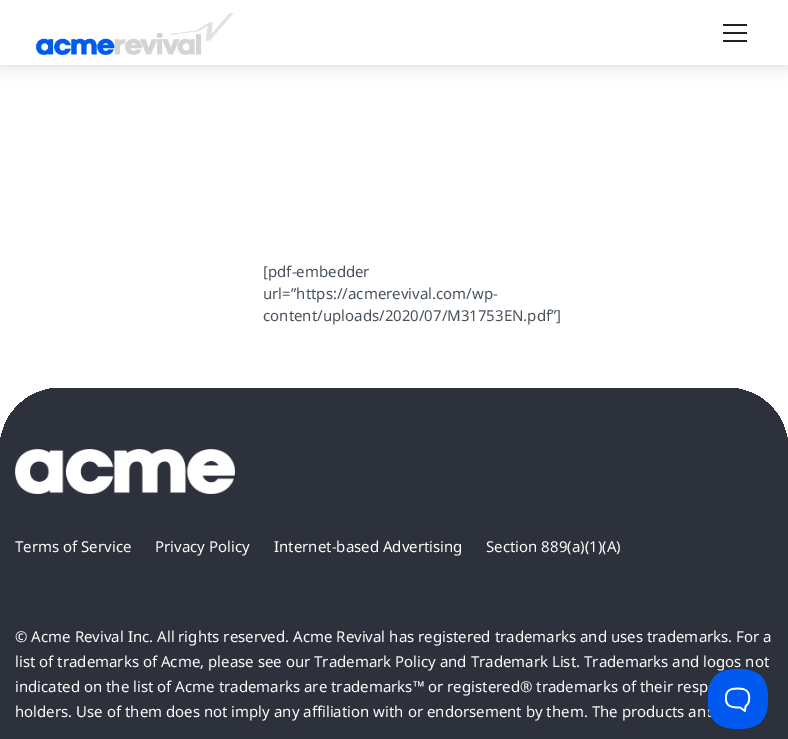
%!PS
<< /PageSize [788 739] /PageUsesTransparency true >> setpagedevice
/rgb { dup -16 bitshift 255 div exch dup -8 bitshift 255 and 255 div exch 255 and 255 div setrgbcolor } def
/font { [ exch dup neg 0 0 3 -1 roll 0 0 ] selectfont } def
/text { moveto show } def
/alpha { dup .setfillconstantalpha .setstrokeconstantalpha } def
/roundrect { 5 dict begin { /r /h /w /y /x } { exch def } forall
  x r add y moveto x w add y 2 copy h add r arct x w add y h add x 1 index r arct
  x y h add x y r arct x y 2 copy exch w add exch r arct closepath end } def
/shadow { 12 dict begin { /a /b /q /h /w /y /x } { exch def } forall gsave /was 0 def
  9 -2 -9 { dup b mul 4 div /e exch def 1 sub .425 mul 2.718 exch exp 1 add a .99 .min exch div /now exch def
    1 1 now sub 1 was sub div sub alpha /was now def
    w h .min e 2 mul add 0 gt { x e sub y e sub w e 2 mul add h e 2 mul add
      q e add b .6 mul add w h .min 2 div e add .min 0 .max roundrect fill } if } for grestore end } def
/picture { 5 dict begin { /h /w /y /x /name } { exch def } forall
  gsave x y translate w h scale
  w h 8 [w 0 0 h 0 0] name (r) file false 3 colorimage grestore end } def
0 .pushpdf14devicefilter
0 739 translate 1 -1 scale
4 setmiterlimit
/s1 { /NotoSans-Regular 15 font 16#48525C rgb } def
/s2 { /NotoSans-Regular 15 font 16#FFFCFC rgb } def
16#FFFFFF rgb
0 0 788 739 rectfill
16#000000 rgb
0 0 788 65 0 10 0.05 shadow
16#DDDDDD rgb
0 0 788 65 0 7.5 1 shadow
16#FFFFFF rgb
0 0 788 65 rectfill
(pic1.raw) 35 13 199 42 picture
16#20202A rgb
723 40 24 2 rectfill
723 24 24 2 rectfill
723 32 24 2 rectfill
s1
([pdf-embedder) 263 277 text
(url=”https://acmerevival.com/wp-) 263 299 text
(content/uploads/2020/07/M31753EN.pdf”]) 263 321 text
gsave
60 388 moveto 728 388 lineto 761 388 788 415 788 448 curveto 788 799 lineto 0 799 lineto 0 448 lineto 0 415 27 388 60 388 curveto closepath clip newpath
16#2D313C rgb
3 388 782 41 rectfill
49 388 690 1 rectfill
0 429 788 310 rectfill
grestore
(pic2.raw) 15 449 220 45 picture
s2
(Terms of Service) 15 552 text
(Privacy Policy) 155 552 text
(Internet-based Advertising) 274 552 text
(Section 889\(a\)\(1\)\(A\)) 486 552 text
(© Acme Revival Inc. All rights reserved. Acme Revival has registered trademarks and uses trademarks. For a) 15 642 text
(list of trademarks of Acme, please see our Trademark Policy and Trademark List. Trademarks and logos not) 15 667 text
(indicated on the list of Acme trademarks are trademarks™ or registered® trademarks of their resp) 15 692 text
(holders. Use of them does not imply any affiliation with or endorsement by them. The products an) 15 717 text
(pic3.raw) 708 669 60 60 picture
.poppdf14devicefilter showpage
